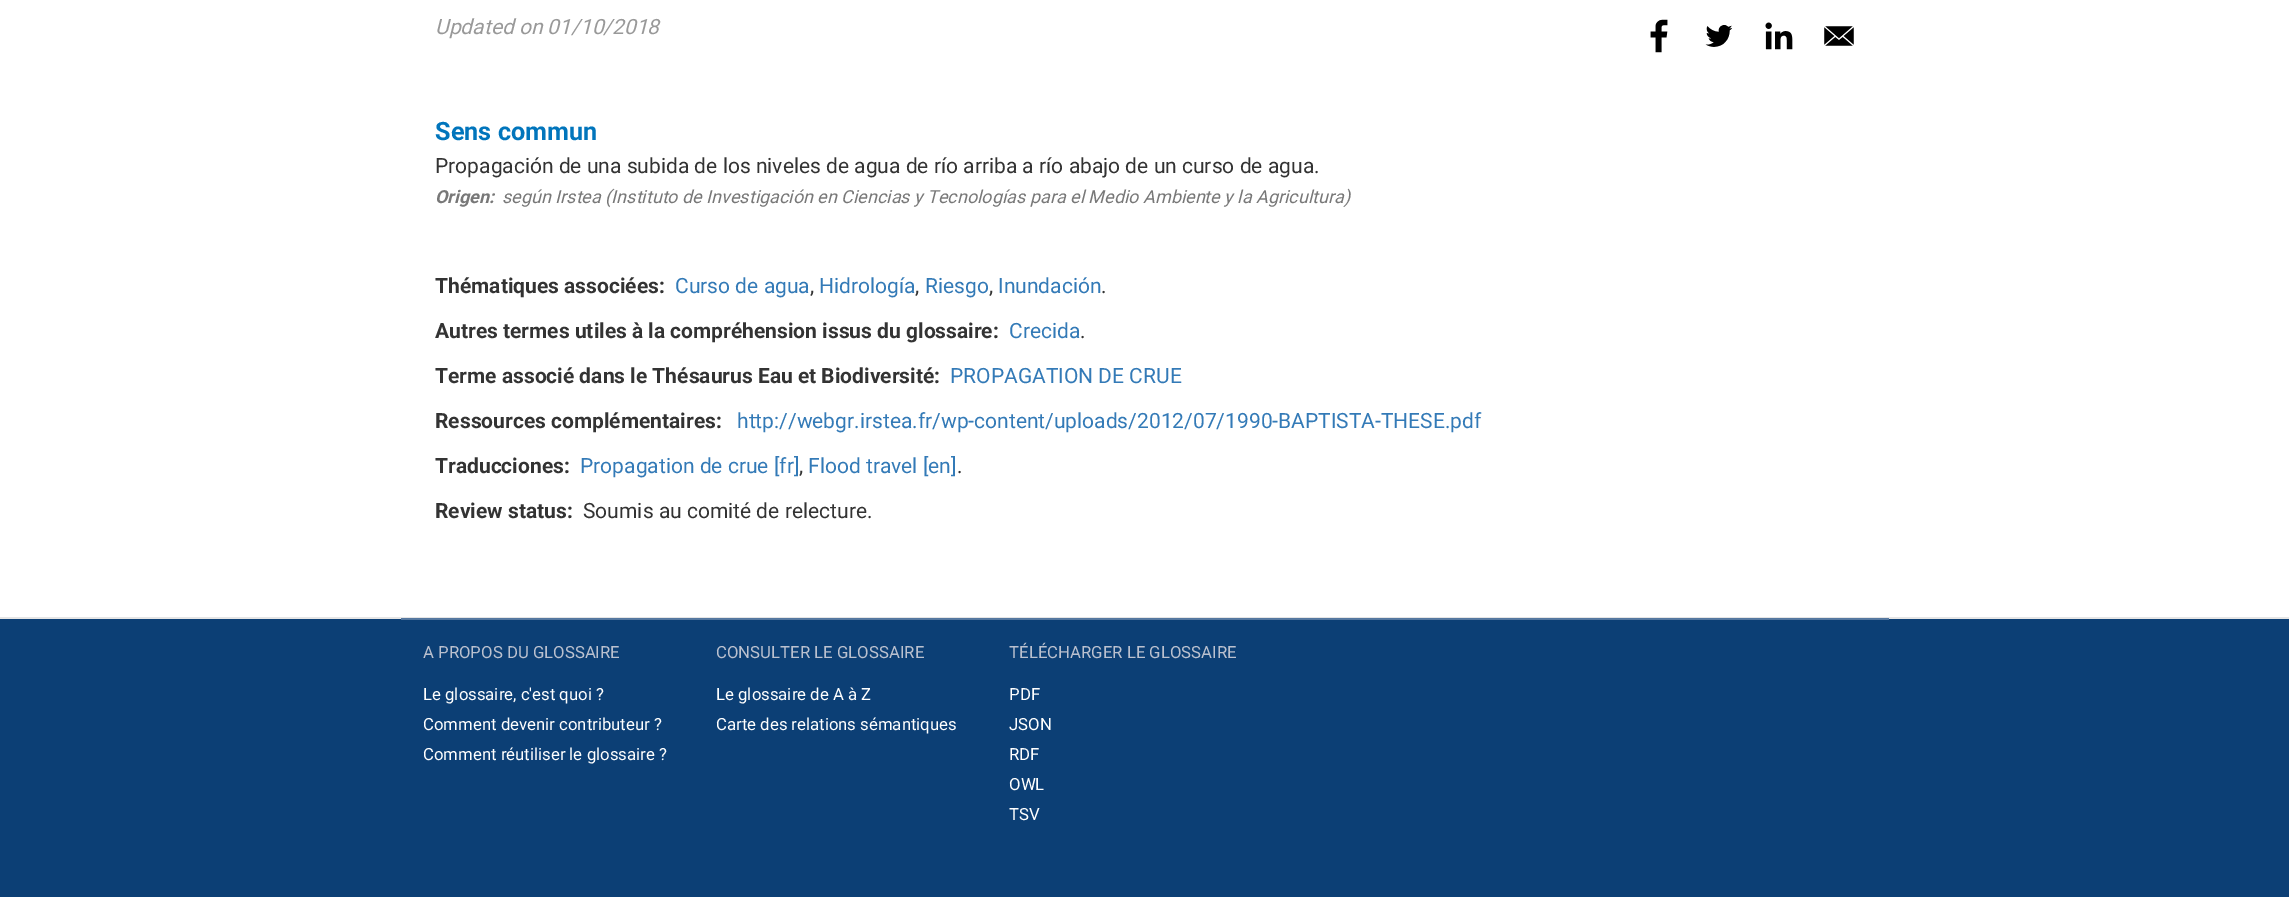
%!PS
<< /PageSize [2289 897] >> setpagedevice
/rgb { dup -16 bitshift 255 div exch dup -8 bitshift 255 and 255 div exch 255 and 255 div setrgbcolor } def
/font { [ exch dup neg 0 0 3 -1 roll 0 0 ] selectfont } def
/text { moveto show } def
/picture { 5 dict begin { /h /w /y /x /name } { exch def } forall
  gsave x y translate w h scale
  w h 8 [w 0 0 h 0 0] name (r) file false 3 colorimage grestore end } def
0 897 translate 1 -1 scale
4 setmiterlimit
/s1 { /Roboto-Italic 21 font 16#999999 rgb } def
/s2 { /Roboto-Bold 25.25 font 16#0175BC rgb } def
/s3 { /Roboto-Regular 21 font 16#333333 rgb } def
/s4 { /Roboto-BoldItalic 18 font 16#787878 rgb } def
/s5 { /Roboto-Italic 18 font 16#787878 rgb } def
/s6 { /Roboto-Bold 21 font 16#333333 rgb } def
/s7 { /Roboto-Regular 21 font 16#337AB7 rgb } def
/s8 { /Roboto-Regular 16.75 font 16#BBC1CF rgb } def
/s9 { /Roboto-Regular 16.75 font 16#FFFFFF rgb } def
16#FFFFFF rgb
0 0 2289 897 rectfill
s1
(Updated on 01/10/2018) 435 34 text
(pic1.raw) 1650 19 18 34 picture
(pic2.raw) 1705 25 27 22 picture
(pic3.raw) 1765 22 28 28 picture
(pic4.raw) 1824 26 30 20 picture
s2
(Sens commun) 435 140 text
s3
(Propagación de una subida de los niveles de agua de río arriba a río abajo de un curso de agua.) 435 173 text
s4
(Origen:) 435 203 text
s5
(según Irstea \(Instituto de Investigación en Ciencias y Tecnologías para el Medio Ambiente y la Agricultura\)) 502 203 text
s6
(Thématiques associées:) 435 293 text
s7
(Curso de agua) 675 293 text
s3
(,) 810 293 text
s7
(Hidrología) 819 293 text
s3
(,) 915 293 text
s7
(Riesgo) 925 293 text
s3
(,) 989 293 text
s7
(Inundación) 998 293 text
s3
(.) 1101 293 text
s6
(Autres termes utiles à la compréhension issus du glossaire:) 435 338 text
s7
(Crecida) 1009 338 text
s3
(.) 1080 338 text
s6
(Terme associé dans le Thésaurus Eau et Biodiversité:) 435 383 text
s7
(PROPAGATION DE CRUE) 950 383 text
s6
(Ressources complémentaires:) 435 428 text
s7
(http://webgr.irstea.fr/wp-content/uploads/2012/07/1990-BAPTISTA-THESE.pdf) 737 428 text
s6
(Traducciones:) 435 473 text
s7
(Propagation de crue [fr]) 580 473 text
s3
(,) 799 473 text
s7
(Flood travel [en]) 808 473 text
s3
(.) 957 473 text
s6
(Review status:) 435 518 text
s3
(Soumis au comité de relecture.) 583 518 text
16#0C3F75 rgb
0 619 2289 278 rectfill
16#E5E5E5 rgb
0 617 2289 2 rectfill
16#5578A0 rgb
401 618 1488 2 rectfill
s8
(A PROPOS DU GLOSSAIRE) 423 658 text
s9
(Le glossaire, c'est quoi ?) 423 700 text
(Comment devenir contributeur ?) 423 730 text
(Comment réutiliser le glossaire ?) 423 760 text
s8
(CONSULTER LE GLOSSAIRE) 716 658 text
s9
(Le glossaire de A à Z) 716 700 text
(Carte des relations sémantiques) 716 730 text
s8
(TÉLÉCHARGER LE GLOSSAIRE) 1009 658 text
s9
(PDF) 1009 700 text
(JSON) 1009 730 text
(RDF) 1009 760 text
(OWL) 1009 790 text
(TSV) 1009 820 text
showpage
